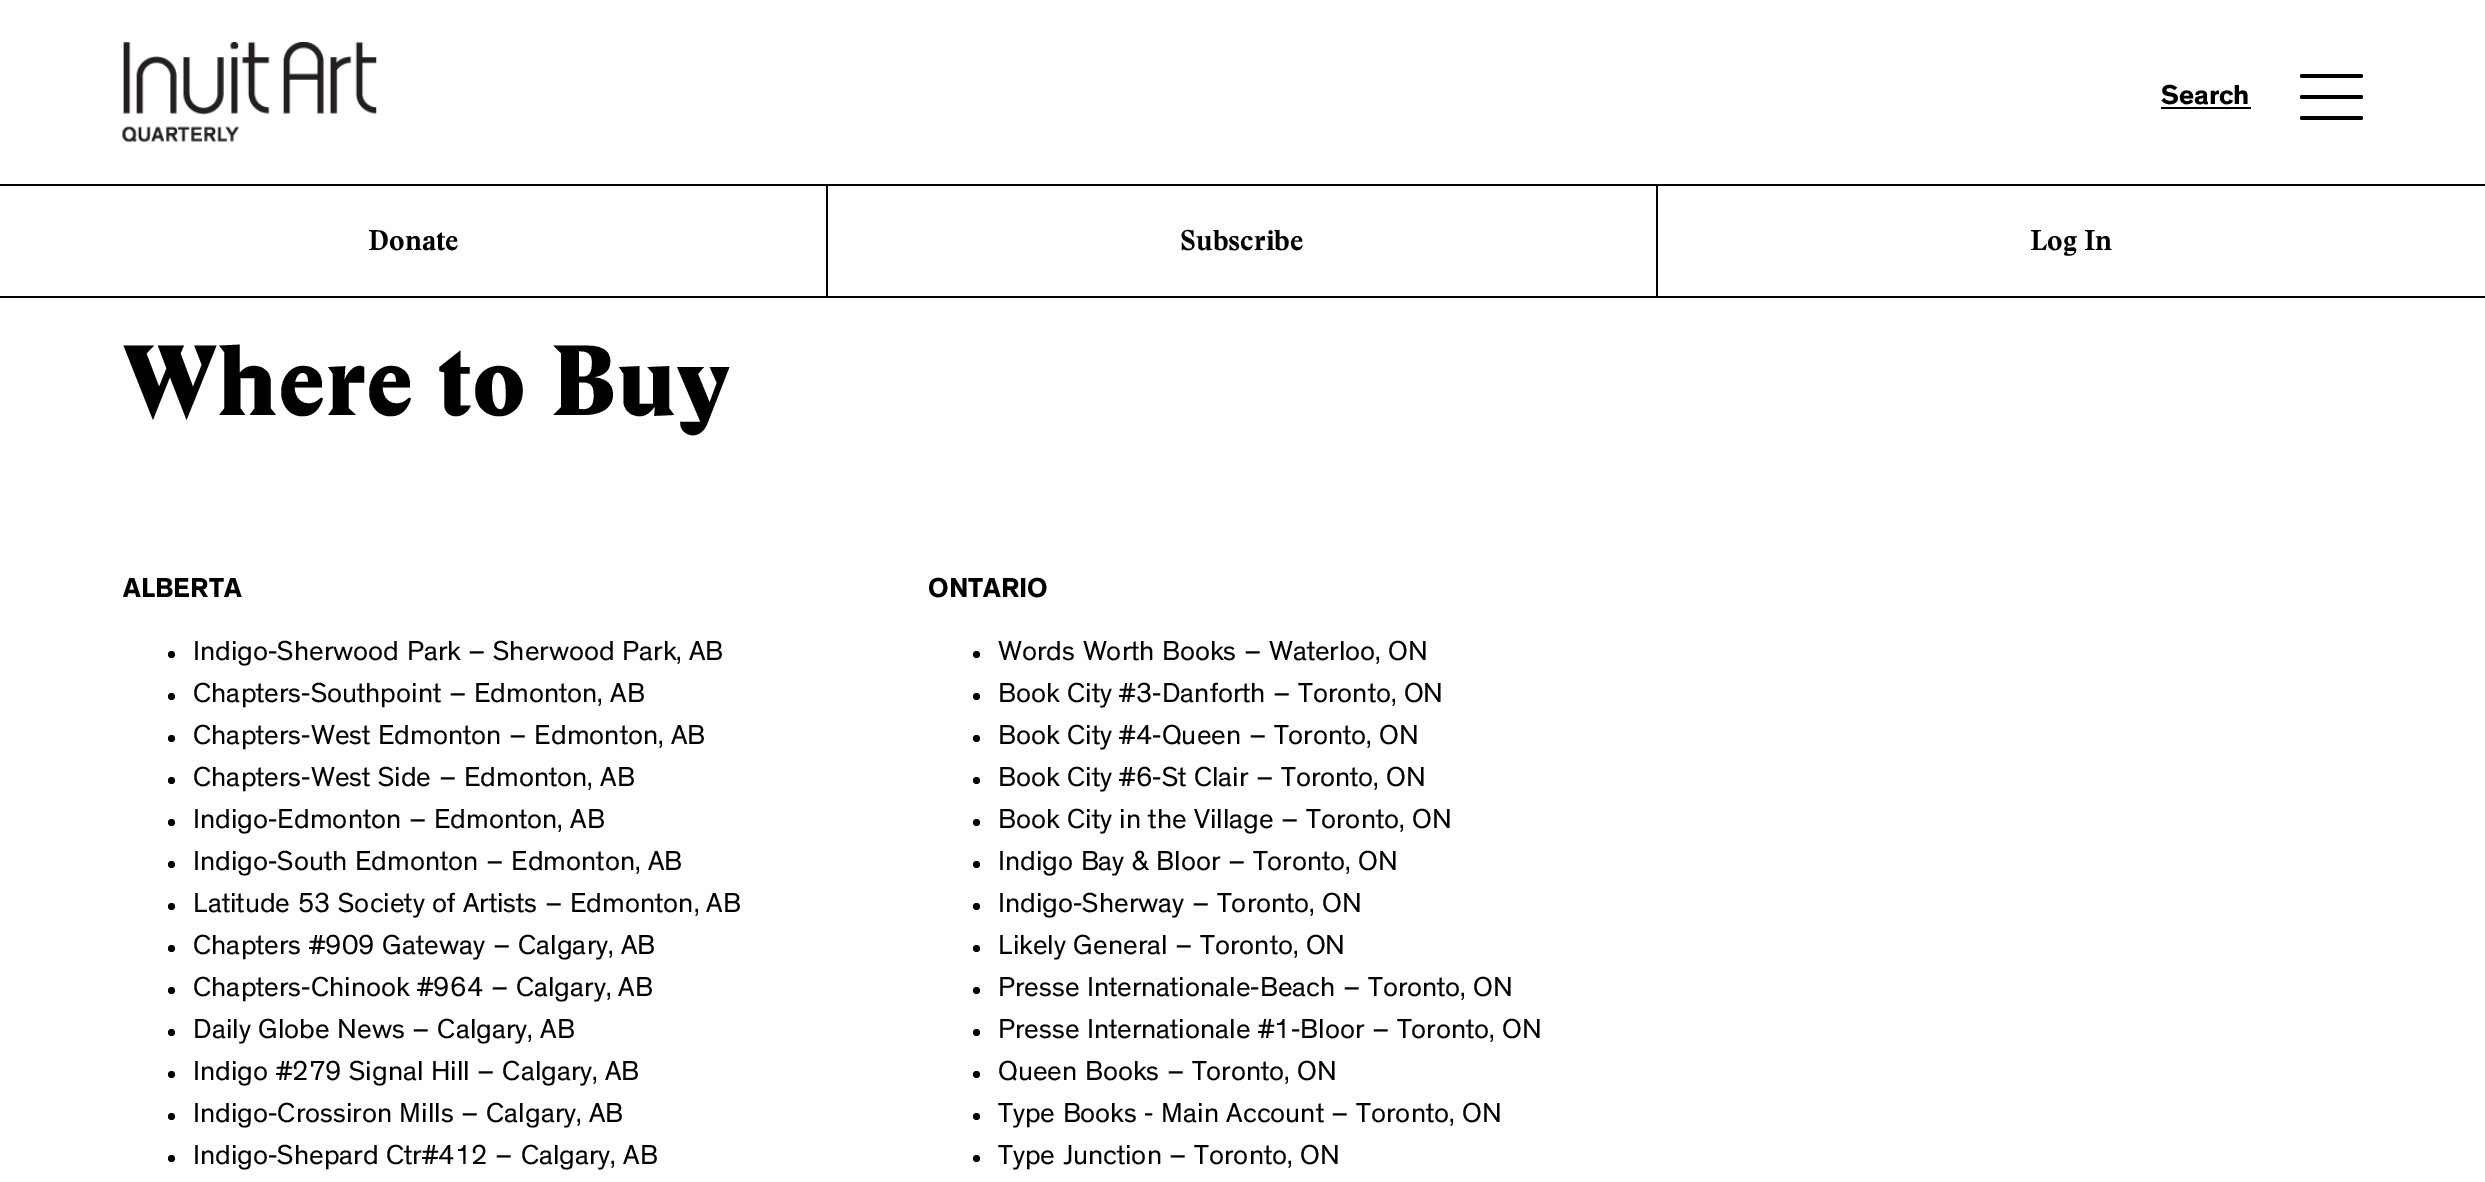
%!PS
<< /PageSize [2485 1182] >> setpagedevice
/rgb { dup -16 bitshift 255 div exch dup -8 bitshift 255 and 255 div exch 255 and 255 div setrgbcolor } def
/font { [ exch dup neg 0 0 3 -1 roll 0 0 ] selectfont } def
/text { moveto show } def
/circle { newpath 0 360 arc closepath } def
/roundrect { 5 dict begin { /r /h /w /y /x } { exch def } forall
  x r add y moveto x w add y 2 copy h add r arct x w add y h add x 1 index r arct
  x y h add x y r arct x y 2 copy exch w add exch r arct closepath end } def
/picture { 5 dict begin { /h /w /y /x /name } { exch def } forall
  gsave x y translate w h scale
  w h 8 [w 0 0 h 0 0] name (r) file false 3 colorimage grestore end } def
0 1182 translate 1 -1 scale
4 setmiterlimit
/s1 { /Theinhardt-Bold 28 font 16#000000 rgb } def
/s2 { /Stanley-Bold 28 font 16#000000 rgb } def
/s3 { /Stanley-ExtraBold 98 font 16#000000 rgb } def
/s4 { /Theinhardt-Regular 28 font 16#000000 rgb } def
16#FFFFFF rgb
0 0 2485 1182 rectfill
(pic1.raw) 122 42 255 100 picture
s1
(Search) 2161 104 text
2161 107 90 2 rectfill
2300 74 63 4 2 roundrect fill
2300 95 63 4 2 roundrect fill
2300 116 63 4 2 roundrect fill
0 184 2485 2 rectfill
0 296 2485 2 rectfill
826 186 2 110 rectfill
s2
(Donate) 368 250 text
1656 186 2 110 rectfill
(Subscribe) 1180 250 text
(Log In) 2030 250 text
s3
(Where to Buy) 123 415 text
s1
(ALBERTA) 123 597 text
171.5 654.5 3.5 circle fill
s4
(Indigo-Sherwood Park – Sherwood Park, AB) 193 660 text
171.5 696.5 3.5 circle fill
(Chapters-Southpoint – Edmonton, AB) 193 702 text
171.5 738.5 3.5 circle fill
(Chapters-West Edmonton – Edmonton, AB) 193 744 text
171.5 780.5 3.5 circle fill
(Chapters-West Side – Edmonton, AB) 193 786 text
171.5 822.5 3.5 circle fill
(Indigo-Edmonton – Edmonton, AB) 193 828 text
171.5 864.5 3.5 circle fill
(Indigo-South Edmonton – Edmonton, AB) 193 870 text
171.5 906.5 3.5 circle fill
(Latitude 53 Society of Artists – Edmonton, AB) 193 912 text
171.5 948.5 3.5 circle fill
(Chapters #909 Gateway – Calgary, AB) 193 954 text
171.5 990.5 3.5 circle fill
(Chapters-Chinook #964 – Calgary, AB) 193 996 text
171.5 1032.5 3.5 circle fill
(Daily Globe News – Calgary, AB) 193 1038 text
171.5 1074.5 3.5 circle fill
(Indigo #279 Signal Hill – Calgary, AB) 193 1080 text
171.5 1116.5 3.5 circle fill
(Indigo-Crossiron Mills – Calgary, AB) 193 1122 text
171.5 1158.5 3.5 circle fill
(Indigo-Shepard Ctr#412 – Calgary, AB) 193 1164 text
s1
(ONTARIO) 928 597 text
976.5 654.5 3.5 circle fill
s4
(Words Worth Books – Waterloo, ON) 998 660 text
976.5 696.5 3.5 circle fill
(Book City #3-Danforth – Toronto, ON) 998 702 text
976.5 738.5 3.5 circle fill
(Book City #4-Queen – Toronto, ON) 998 744 text
976.5 780.5 3.5 circle fill
(Book City #6-St Clair – Toronto, ON) 998 786 text
976.5 822.5 3.5 circle fill
(Book City in the Village – Toronto, ON) 998 828 text
976.5 864.5 3.5 circle fill
(Indigo Bay & Bloor – Toronto, ON) 998 870 text
976.5 906.5 3.5 circle fill
(Indigo-Sherway – Toronto, ON) 998 912 text
976.5 948.5 3.5 circle fill
(Likely General – Toronto, ON) 998 954 text
976.5 990.5 3.5 circle fill
(Presse Internationale-Beach – Toronto, ON) 998 996 text
976.5 1032.5 3.5 circle fill
(Presse Internationale #1-Bloor – Toronto, ON) 998 1038 text
976.5 1074.5 3.5 circle fill
(Queen Books – Toronto, ON) 998 1080 text
976.5 1116.5 3.5 circle fill
(Type Books - Main Account – Toronto, ON) 998 1122 text
976.5 1158.5 3.5 circle fill
(Type Junction – Toronto, ON) 998 1164 text
showpage
